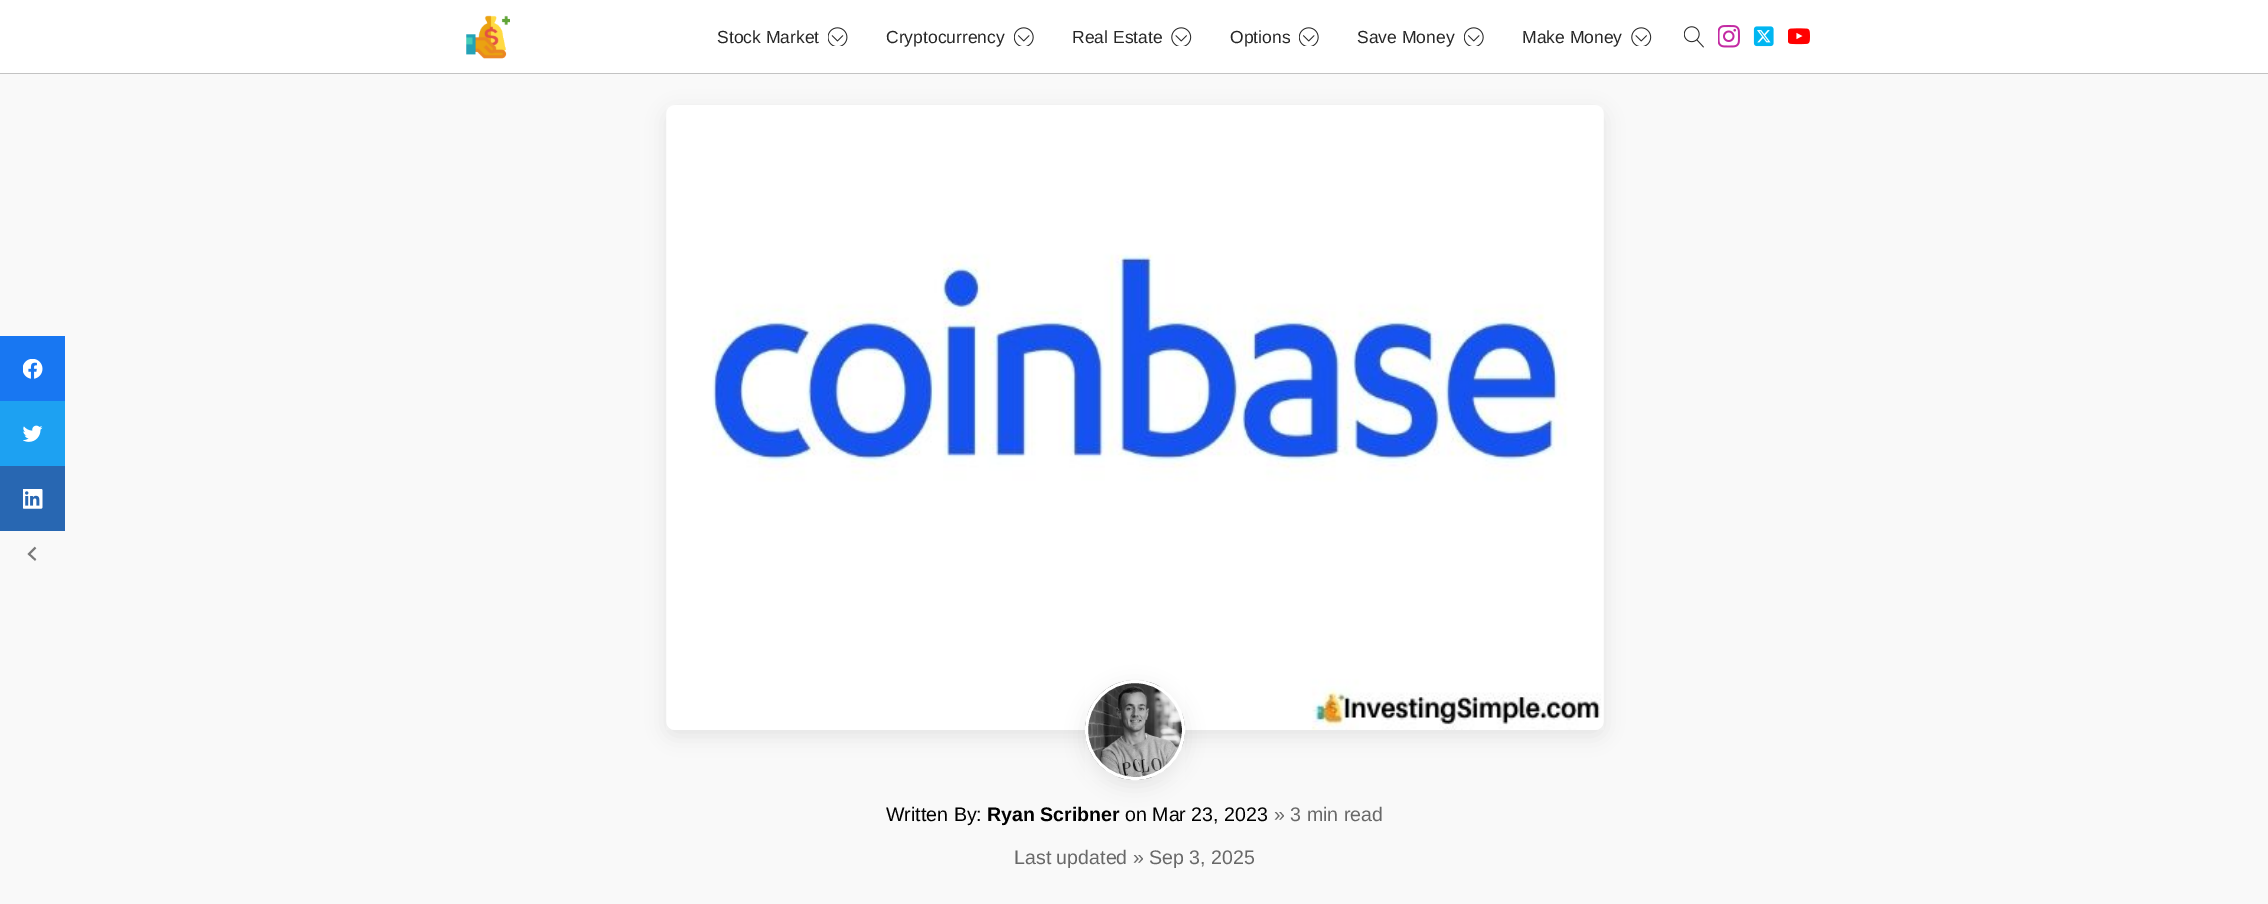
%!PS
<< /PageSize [2268 904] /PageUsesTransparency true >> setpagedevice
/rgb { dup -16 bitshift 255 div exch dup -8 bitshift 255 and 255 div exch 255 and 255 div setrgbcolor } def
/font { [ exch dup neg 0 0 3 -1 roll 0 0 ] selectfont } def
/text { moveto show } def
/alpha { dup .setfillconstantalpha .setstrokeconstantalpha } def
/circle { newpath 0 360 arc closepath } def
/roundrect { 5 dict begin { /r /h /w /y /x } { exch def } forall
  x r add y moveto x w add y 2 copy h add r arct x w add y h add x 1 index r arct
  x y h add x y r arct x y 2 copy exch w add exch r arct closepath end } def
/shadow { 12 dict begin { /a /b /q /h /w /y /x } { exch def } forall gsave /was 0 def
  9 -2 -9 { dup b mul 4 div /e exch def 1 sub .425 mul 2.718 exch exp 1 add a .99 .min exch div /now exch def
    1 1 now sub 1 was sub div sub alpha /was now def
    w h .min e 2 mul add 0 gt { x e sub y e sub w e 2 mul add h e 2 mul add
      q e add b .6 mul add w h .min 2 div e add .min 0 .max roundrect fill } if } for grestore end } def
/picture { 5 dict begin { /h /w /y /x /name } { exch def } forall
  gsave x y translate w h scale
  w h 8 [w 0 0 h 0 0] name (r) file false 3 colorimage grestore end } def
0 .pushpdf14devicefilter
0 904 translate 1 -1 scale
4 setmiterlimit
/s1 { /LiberationSans-Regular 17.5 font 16#262626 rgb } def
/s2 { /LiberationSans-Regular 19.6 font 16#000000 rgb } def
/s3 { /LiberationSans-Bold 19.6 font 16#000000 rgb } def
/s4 { /LiberationSans-Regular 19.6 font 16#686868 rgb } def
16#FFFFFF rgb
0 0 2268 904 rectfill
(pic1.raw) 466 15 44 44 picture
s1
(Stock Market) 717 43 text
(pic2.raw) 828 27 20 19 picture
(Cryptocurrency) 886 43 text
(pic3.raw) 1014 27 20 19 picture
(Real Estate) 1072 43 text
(pic4.raw) 1171 27 21 19 picture
(Options) 1230 43 text
(pic3.raw) 1299 27 20 19 picture
(Save Money) 1357 43 text
(pic3.raw) 1464 27 20 19 picture
(Make Money) 1522 43 text
(pic4.raw) 1631 27 21 19 picture
(pic5.raw) 1684 26 20 22 picture
(pic6.raw) 1718 25 22 23 picture
(pic7.raw) 1753 26 21 21 picture
(pic8.raw) 1788 28 22 17 picture
16#C3C3C3 rgb
0 73 2268 1 rectfill
16#F9F9F9 rgb
0 74 2268 830 rectfill
16#1877F2 rgb
0 336 65 65 rectfill
(pic9.raw) 23 359 20 20 picture
16#1DA1F2 rgb
0 401 65 65 rectfill
(pic10.raw) 23 425 20 17 picture
16#2867B2 rgb
0 466 65 65 rectfill
(pic11.raw) 23 489 20 20 picture
16#797979 rgb
1.9 setlinewidth
35.5 547.5 moveto 29 554 lineto 35.5 560 lineto stroke
16#000000 rgb
666 111 938 625 9 9.5 0.08 shadow
(pic12.raw) 666 105 938 625 picture
1085 686 100 100 50 9.5 0.08 shadow
(pic13.raw) 1085 680 100 100 picture
16#FFFFFF rgb
3 setlinewidth
1135 730 48.5 circle stroke
s2
(Written By:) 886 821 text
s3
(Ryan Scribner) 987 821 text
s2
(on Mar 23, 2023) 1125 821 text
s4
(» 3 min read) 1274 821 text
(Last updated » Sep 3, 2025) 1014 864 text
.poppdf14devicefilter showpage
